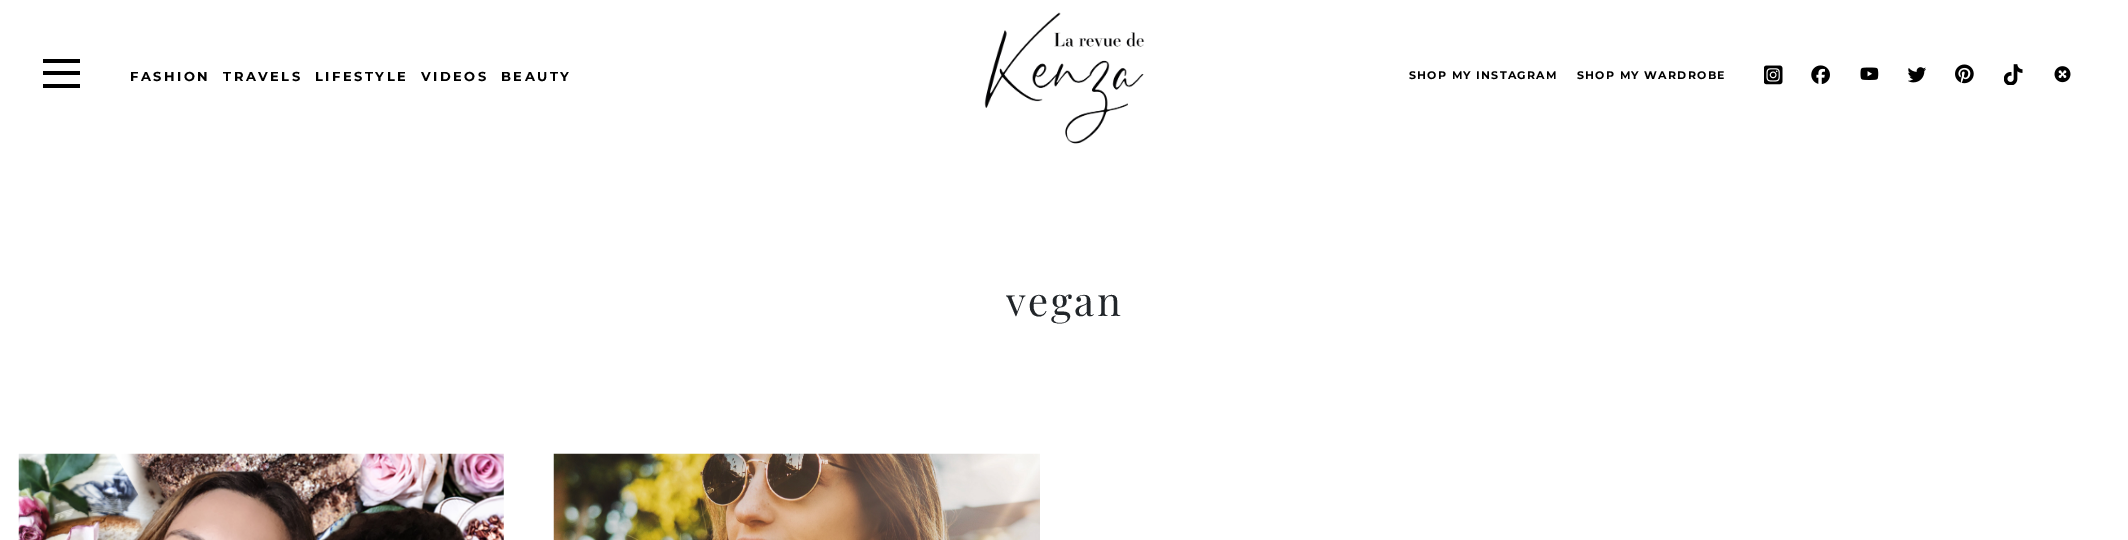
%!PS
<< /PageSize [2128 540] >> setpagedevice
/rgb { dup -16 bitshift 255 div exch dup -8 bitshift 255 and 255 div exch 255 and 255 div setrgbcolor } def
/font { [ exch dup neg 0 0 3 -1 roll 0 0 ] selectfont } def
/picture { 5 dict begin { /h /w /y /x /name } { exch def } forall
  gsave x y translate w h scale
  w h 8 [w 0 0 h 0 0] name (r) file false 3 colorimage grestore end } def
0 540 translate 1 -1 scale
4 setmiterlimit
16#FFFFFF rgb
0 0 2128 540 rectfill
16#000000 rgb
43 71 37 4 rectfill
43 59 37 4 rectfill
43 84 37 4 rectfill
/Montserrat-Bold 13 font
130 81 moveto 2.5 0 (FASHION) ashow
223 81 moveto 2.5 0 (TRAVELS) ashow
315 81 moveto 2.5 0 (LIFESTYLE) ashow
421 81 moveto 2.5 0 (VIDEOS) ashow
501 81 moveto 2.5 0 (BEAUTY) ashow
(pic1.raw) 984 12 161 132 picture
/Montserrat-Bold 11 font
1409 79 moveto 1.25 0 (SHOP MY INSTAGRAM) ashow
1577 79 moveto 1.25 0 (SHOP MY WARDROBE) ashow
(pic2.raw) 1764 65 19 20 picture
(pic3.raw) 1811 65 19 19 picture
(pic4.raw) 1860 67 19 13 picture
(pic5.raw) 1908 67 18 16 picture
(pic6.raw) 1955 64 19 20 picture
(pic7.raw) 2004 64 19 21 picture
(pic8.raw) 2054 66 17 17 picture
/PlayfairDisplay-Regular 40 font
16#212529 rgb
1006 316 moveto 2.5 0 (vegan) ashow
(pic9.raw) 18 453 486 87 picture
(pic10.raw) 553 453 487 87 picture
showpage
